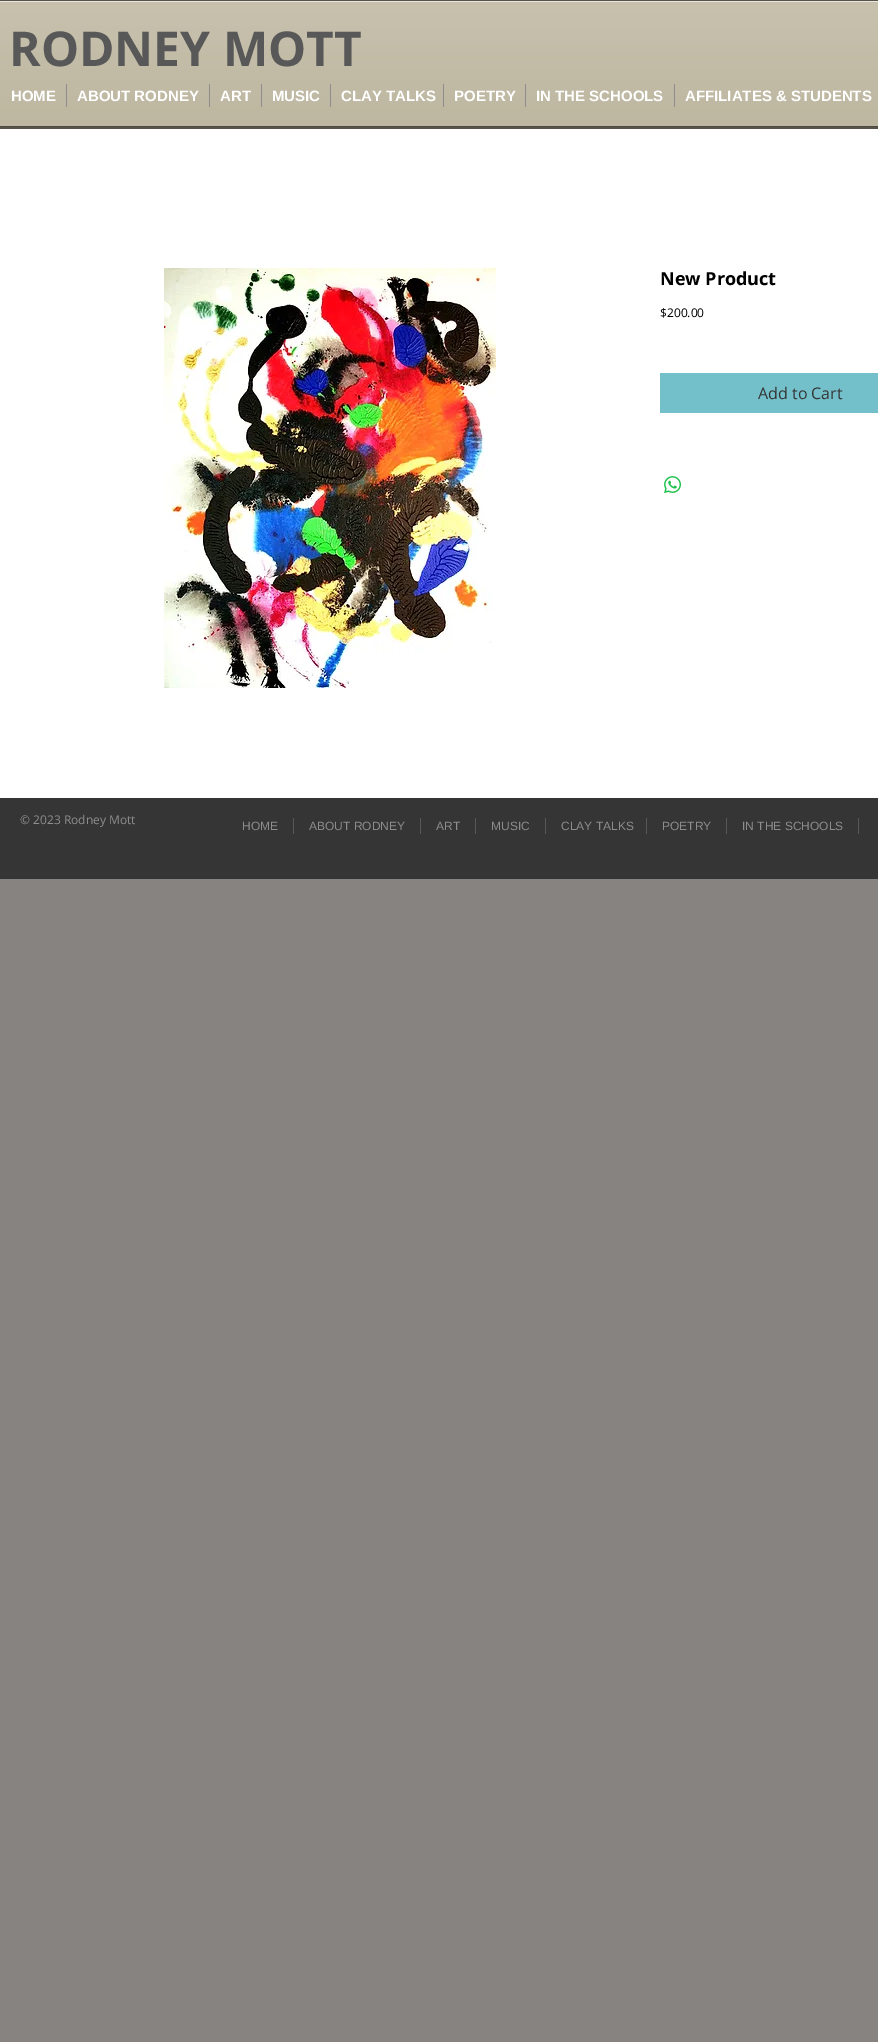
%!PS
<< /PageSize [878 2042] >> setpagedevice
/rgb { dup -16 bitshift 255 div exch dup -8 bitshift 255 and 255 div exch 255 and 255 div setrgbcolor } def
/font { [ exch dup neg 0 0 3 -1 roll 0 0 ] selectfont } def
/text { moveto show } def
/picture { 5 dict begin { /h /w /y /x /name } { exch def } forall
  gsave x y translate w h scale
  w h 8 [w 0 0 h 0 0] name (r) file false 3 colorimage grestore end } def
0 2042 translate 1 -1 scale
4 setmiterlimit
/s1 { /OpenSans-Bold 48 font 16#585858 rgb } def
/s2 { /LiberationSans-Bold 15 font 16#FFFFFF rgb } def
/s3 { /OpenSans-Bold 18 font 16#000000 rgb } def
/s4 { /OpenSans-Regular 12 font 16#000000 rgb } def
/s5 { /OpenSans-Regular 16 font 16#353535 rgb } def
/s6 { /OpenSans-Regular 12 font 16#8D8D8D rgb } def
/s7 { /LiberationSans-Regular 12 font 16#8D8D8D rgb } def
16#868381 rgb
0 0 878 2042 rectfill
16#B3AB91 rgb
0 2 878 124 rectfill
(pic1.raw) 0 2 878 124 picture
16#4C4940 rgb
0 126 878 1 rectfill
16#E8E6DE rgb
0 1 878 1 rectfill
16#575348 rgb
0 0 878 1 rectfill
0 127 878 2 rectfill
s1
(RODNEY MOTT) 9 66 text
s2
(HOME) 11 101 text
16#8D8D8D rgb
66 84 1 23 rectfill
s2
(ABOUT RODNEY) 77 101 text
16#8D8D8D rgb
209 84 1 23 rectfill
s2
(ART) 220 101 text
16#8D8D8D rgb
261 84 1 23 rectfill
s2
(MUSIC) 272 101 text
16#8D8D8D rgb
330 84 1 23 rectfill
s2
(CLAY TALKS) 341 101 text
16#8D8D8D rgb
443 84 1 23 rectfill
s2
(POETRY) 454 101 text
16#8D8D8D rgb
525 84 1 23 rectfill
s2
(IN THE SCHOOLS) 536 101 text
16#8D8D8D rgb
674 84 1 23 rectfill
s2
(AFFILIATES & STUDENTS) 685 101 text
0 129 878 669 rectfill
(pic2.raw) 164 268 332 420 picture
s3
(New Product) 660 285 text
s4
($200.00) 660 317 text
16#73C0CA rgb
660 373 218 40 rectfill
s5
(Add to Cart) 758 399 text
(pic3.raw) 664 476 17 17 picture
0 798 878 81 rectfill
s6
(© 2023 Rodney Mott) 20 824 text
s7
(HOME) 242 830 text
16#585858 rgb
293 818 1 16 rectfill
s7
(ABOUT RODNEY) 309 830 text
16#585858 rgb
420 818 1 16 rectfill
s7
(ART) 436 830 text
16#585858 rgb
475 818 1 16 rectfill
s7
(MUSIC) 491 830 text
16#585858 rgb
545 818 1 16 rectfill
s7
(CLAY TALKS) 561 830 text
16#585858 rgb
646 818 1 16 rectfill
s7
(POETRY) 662 830 text
16#585858 rgb
726 818 1 16 rectfill
s7
(IN THE SCHOOLS) 742 830 text
16#585858 rgb
858 818 1 16 rectfill
showpage
